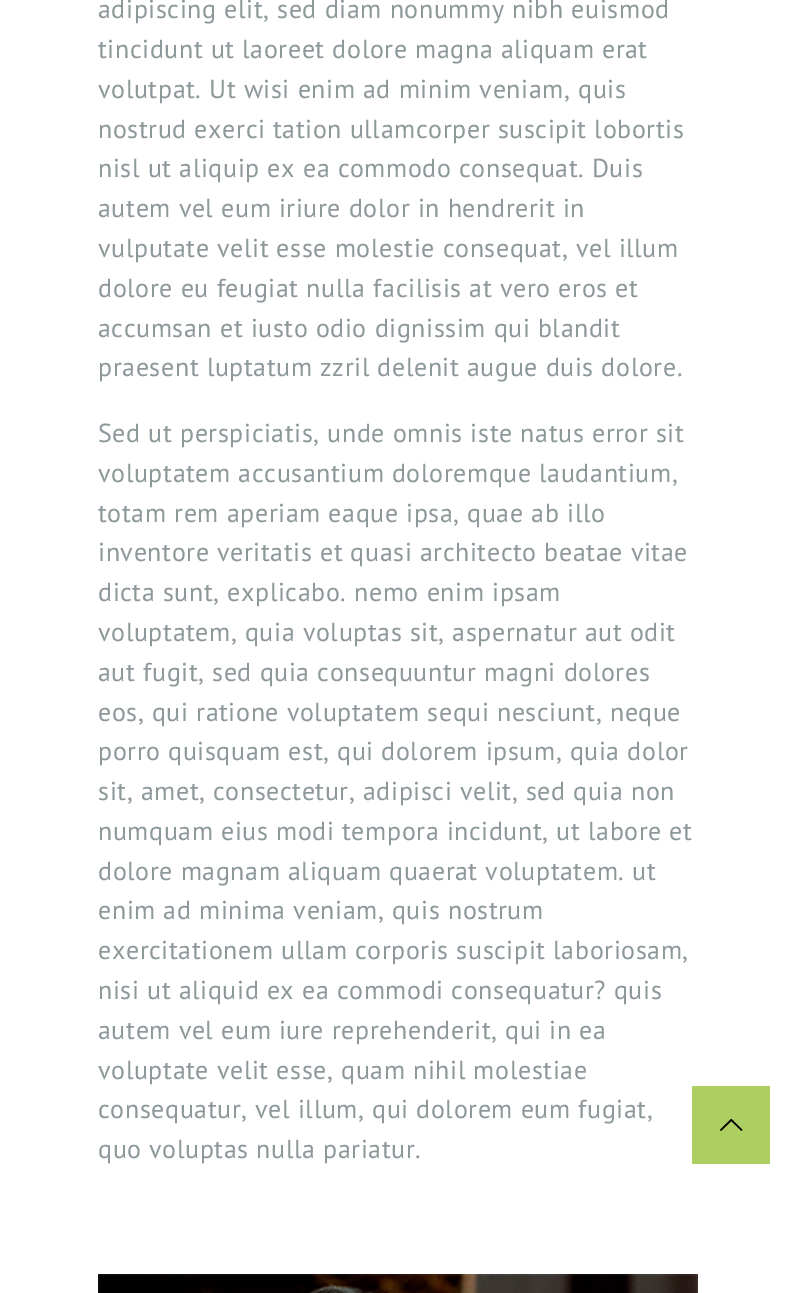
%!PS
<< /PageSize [796 1293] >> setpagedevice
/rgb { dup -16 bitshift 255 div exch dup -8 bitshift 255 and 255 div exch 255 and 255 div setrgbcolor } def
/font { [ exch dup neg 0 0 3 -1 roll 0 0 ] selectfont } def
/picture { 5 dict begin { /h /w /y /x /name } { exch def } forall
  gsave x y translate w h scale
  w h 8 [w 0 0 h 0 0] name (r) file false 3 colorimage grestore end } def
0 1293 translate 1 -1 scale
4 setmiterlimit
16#FFFFFF rgb
0 0 796 1293 rectfill
/PTSans-Regular 26 font
16#8D989A rgb
98 18 moveto 0.6 0 (adipiscing elit, sed diam nonummy nibh euismod) ashow
98 58 moveto 0.6 0 (tincidunt ut laoreet dolore magna aliquam erat) ashow
98 98 moveto 0.6 0 (volutpat. Ut wisi enim ad minim veniam, quis) ashow
98 138 moveto 0.6 0 (nostrud exerci tation ullamcorper suscipit lobortis) ashow
98 177 moveto 0.6 0 (nisl ut aliquip ex ea commodo consequat. Duis) ashow
98 217 moveto 0.6 0 (autem vel eum iriure dolor in hendrerit in) ashow
98 257 moveto 0.6 0 (vulputate velit esse molestie consequat, vel illum) ashow
98 297 moveto 0.6 0 (dolore eu feugiat nulla facilisis at vero eros et) ashow
98 337 moveto 0.6 0 (accumsan et iusto odio dignissim qui blandit) ashow
98 376 moveto 0.6 0 (praesent luptatum zzril delenit augue duis dolore.) ashow
98 442 moveto 0.6 0 (Sed ut perspiciatis, unde omnis iste natus error sit) ashow
98 482 moveto 0.6 0 (voluptatem accusantium doloremque laudantium,) ashow
98 522 moveto 0.6 0 (totam rem aperiam eaque ipsa, quae ab illo) ashow
98 561 moveto 0.6 0 (inventore veritatis et quasi architecto beatae vitae) ashow
98 601 moveto 0.6 0 (dicta sunt, explicabo. nemo enim ipsam) ashow
98 641 moveto 0.6 0 (voluptatem, quia voluptas sit, aspernatur aut odit) ashow
98 681 moveto 0.6 0 (aut fugit, sed quia consequuntur magni dolores) ashow
98 721 moveto 0.6 0 (eos, qui ratione voluptatem sequi nesciunt, neque) ashow
98 760 moveto 0.6 0 (porro quisquam est, qui dolorem ipsum, quia dolor) ashow
98 800 moveto 0.6 0 (sit, amet, consectetur, adipisci velit, sed quia non) ashow
98 840 moveto 0.6 0 (numquam eius modi tempora incidunt, ut labore et) ashow
98 880 moveto 0.6 0 (dolore magnam aliquam quaerat voluptatem. ut) ashow
98 919 moveto 0.6 0 (enim ad minima veniam, quis nostrum) ashow
98 959 moveto 0.6 0 (exercitationem ullam corporis suscipit laboriosam,) ashow
98 999 moveto 0.6 0 (nisi ut aliquid ex ea commodi consequatur? quis) ashow
98 1039 moveto 0.6 0 (autem vel eum iure reprehenderit, qui in ea) ashow
98 1079 moveto 0.6 0 (voluptate velit esse, quam nihil molestiae) ashow
98 1118 moveto 0.6 0 (consequatur, vel illum, qui dolorem eum fugiat,) ashow
98 1158 moveto 0.6 0 (quo voluptas nulla pariatur.) ashow
(pic1.raw) 98 1274 600 19 picture
16#ADCE60 rgb
692 1086 78 78 rectfill
(pic2.raw) 720 1118 23 13 picture
showpage
